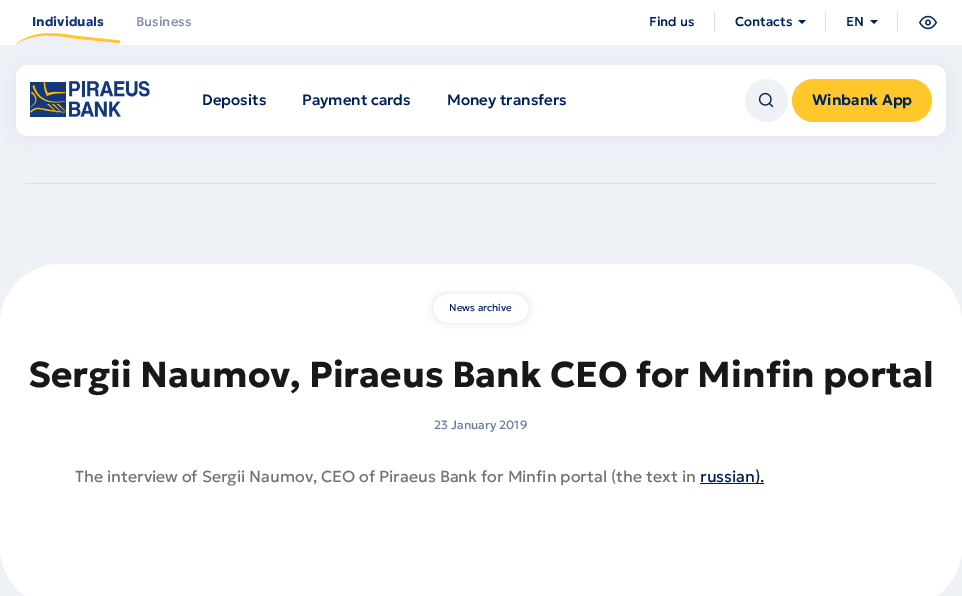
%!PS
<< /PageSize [962 596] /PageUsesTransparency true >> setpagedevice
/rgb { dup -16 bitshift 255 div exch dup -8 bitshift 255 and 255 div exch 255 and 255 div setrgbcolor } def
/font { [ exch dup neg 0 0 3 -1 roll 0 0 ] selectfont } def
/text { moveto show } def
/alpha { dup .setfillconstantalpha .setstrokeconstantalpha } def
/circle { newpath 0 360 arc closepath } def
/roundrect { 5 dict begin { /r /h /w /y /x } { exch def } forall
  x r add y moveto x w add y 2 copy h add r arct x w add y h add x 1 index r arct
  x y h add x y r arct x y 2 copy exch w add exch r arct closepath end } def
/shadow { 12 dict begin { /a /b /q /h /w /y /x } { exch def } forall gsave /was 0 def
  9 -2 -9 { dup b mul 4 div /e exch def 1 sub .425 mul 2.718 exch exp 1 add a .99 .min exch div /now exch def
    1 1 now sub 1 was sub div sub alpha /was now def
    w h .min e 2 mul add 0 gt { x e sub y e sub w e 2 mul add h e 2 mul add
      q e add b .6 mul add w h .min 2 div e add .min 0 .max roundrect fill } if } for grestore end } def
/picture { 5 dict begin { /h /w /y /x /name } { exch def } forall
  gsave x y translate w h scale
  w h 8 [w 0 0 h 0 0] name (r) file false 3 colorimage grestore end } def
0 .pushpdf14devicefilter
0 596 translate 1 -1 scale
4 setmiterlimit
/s1 { /Geologica-Bold 13 font 16#13377D rgb } def
/s2 { /Geologica-Medium 13 font 16#8090AD rgb } def
/s3 { /Geologica-Medium 13 font 16#00205B rgb } def
/s4 { /Geologica-Medium 15 font 16#00205B rgb } def
/s5 { /Geologica-SemiBold 15 font 16#00205B rgb } def
/s6 { /Geologica-Regular 10 font 16#00205B rgb } def
/s7 { /Geologica-Bold 36 font 16#191818 rgb } def
/s8 { /Geologica-Regular 12 font 16#66799D rgb } def
/s9 { /Geologica-Regular 16 font 16#757474 rgb } def
/s10 { /Geologica-Regular 16 font 16#00205B rgb } def
16#EEF1F6 rgb
0 0 962 596 rectfill
16#00205B rgb
16 67 930 71 12 10 0.06 shadow
16#FFFFFF rgb
0 0 962 45 rectfill
gsave
16 32 104 13 rectclip
16#ECF0F6 rgb
185 45 moveto 149 45 135 45 57 34 curveto 31 30 16 44 16 44 curveto 16 49 lineto 185 49 lineto closepath fill
16#FFC72C rgb
16 44 moveto 35 29 56 33 78 36 curveto 115 40 lineto 139 43 163 44 187 45 curveto 164 45 142 45 119 43 curveto 79 39 lineto 57 36 37 31 16 44 curveto closepath fill
grestore
s1
(Individuals) 32 26 text
s2
(Business) 136 26 text
s3
(Find us) 649 26 text
16#D8DFEC rgb
714 12 1 20 rectfill
s3
(Contacts) 735 26 text
798 20 moveto 802 24 lineto 806 20 lineto closepath fill
16#D8DFEC rgb
825 12 1 20 rectfill
s3
(EN) 846 26 text
870 20 moveto 874 24 lineto 878 20 lineto closepath fill
16#D8DFEC rgb
897 12 1 20 rectfill
(pic1.raw) 919 15 18 15 picture
16#FFFFFF rgb
16 65 930 71 12 roundrect fill
(pic2.raw) 30 81 120 36 picture
s4
(Deposits) 202 105 text
(Payment cards) 302 105 text
(Money transfers) 447 105 text
16#EEF1F6 rgb
766.5 100.5 21.5 circle fill
(pic3.raw) 758 92 16 16 picture
16#FFC72C rgb
792 79 140 43 21.5 roundrect fill
s5
(Winbank App) 812 105 text
16#D8DFEC rgb
25 183 912 1 rectfill
16#FFFFFF rgb
0 264 962 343 60 roundrect fill
gsave
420 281 moveto 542 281 lineto 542 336 lineto 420 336 lineto closepath 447.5 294 moveto 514.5 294 lineto 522.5 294 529 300.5 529 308.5 curveto 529 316.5 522.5 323 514.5 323 curveto 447.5 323 lineto 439.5 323 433 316.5 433 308.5 curveto 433 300.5 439.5 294 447.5 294 curveto closepath eoclip newpath
16#000000 rgb
433 294 96 29 14.5 4 0.1 shadow
grestore
s6
(News archive) 449 311 text
s7
(Sergii Naumov, Piraeus Bank CEO for Minfin portal) 28 387 text
s8
(23 January 2019) 434 429 text
s9
(The interview of Sergii Naumov, CEO of Piraeus Bank for Minfin portal \(the text in) 75 482 text
16#00205B rgb
700 483 64 1 rectfill
(russian\).) 700 482 text
.poppdf14devicefilter showpage
